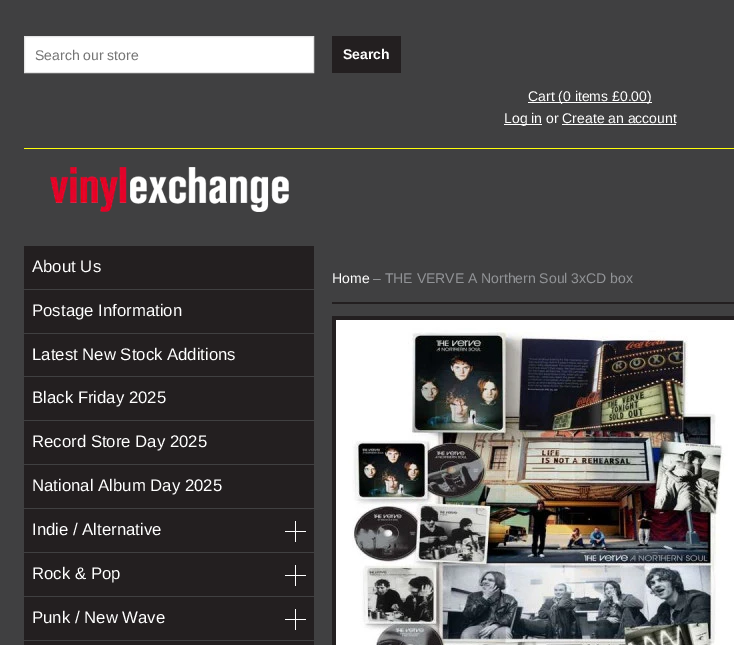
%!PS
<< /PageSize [734 645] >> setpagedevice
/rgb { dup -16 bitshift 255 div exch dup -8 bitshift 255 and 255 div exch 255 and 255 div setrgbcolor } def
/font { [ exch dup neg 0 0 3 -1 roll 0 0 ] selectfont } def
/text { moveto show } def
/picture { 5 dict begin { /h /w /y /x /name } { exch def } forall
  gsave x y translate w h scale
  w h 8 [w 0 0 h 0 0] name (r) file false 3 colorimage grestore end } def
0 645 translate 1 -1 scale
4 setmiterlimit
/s1 { /LiberationSans-Regular 14 font 16#757575 rgb } def
/s2 { /LiberationSans-Bold 14 font 16#FFFFFF rgb } def
/s3 { /LiberationSans-Regular 14 font 16#FFFFFF rgb } def
/s4 { /LiberationSans-Regular 16.75 font 16#FFFFFF rgb } def
/s5 { /LiberationSans-Regular 14 font 16#929497 rgb } def
16#404041 rgb
0 0 734 645 rectfill
16#FFFF0A rgb
24 148 710 1 rectfill
16#FFFFFF rgb
24.5 36.5 moveto 313.5 36.5 lineto 313.5 72.5 lineto 24.5 72.5 lineto closepath gsave fill grestore
16#E5E5E5 rgb
stroke
s1
(Search our store) 35 60 text
16#231F20 rgb
332 36 69 37 rectfill
s2
(Search) 343 59 text
528 102 124 1 rectfill
s3
(Cart \(0 items £0.00\)) 528 101 text
504 124 38 1 rectfill
(Log in or Create an account) 504 123 text
562 124 114 1 rectfill
(pic1.raw) 50 167 239 45 picture
16#231F20 rgb
24 246 290 43 rectfill
s4
(About Us) 32 272 text
16#231F20 rgb
24 290 290 43 rectfill
s4
(Postage Information) 32 316 text
16#231F20 rgb
24 334 290 42 rectfill
s4
(Latest New Stock Additions) 32 360 text
16#231F20 rgb
24 377 290 43 rectfill
s4
(Black Friday 2025) 32 403 text
16#231F20 rgb
24 421 290 43 rectfill
s4
(Record Store Day 2025) 32 447 text
16#231F20 rgb
24 465 290 43 rectfill
s4
(National Album Day 2025) 32 491 text
16#231F20 rgb
24 509 290 43 rectfill
(pic2.raw) 285 521 21 21 picture
s4
(Indie / Alternative) 32 535 text
16#231F20 rgb
24 553 290 43 rectfill
(pic2.raw) 285 565 21 21 picture
s4
(Rock & Pop) 32 579 text
16#231F20 rgb
24 597 290 43 rectfill
(pic2.raw) 285 609 21 21 picture
s4
(Punk / New Wave) 32 623 text
16#231F20 rgb
24 641 290 4 rectfill
332 302 402 2 rectfill
s3
(Home) 332 283 text
s5
(– THE VERVE A Northern Soul 3xCD box) 373 283 text
16#231F20 rgb
332 316 402 329 rectfill
(pic3.raw) 336 320 398 325 picture
showpage
